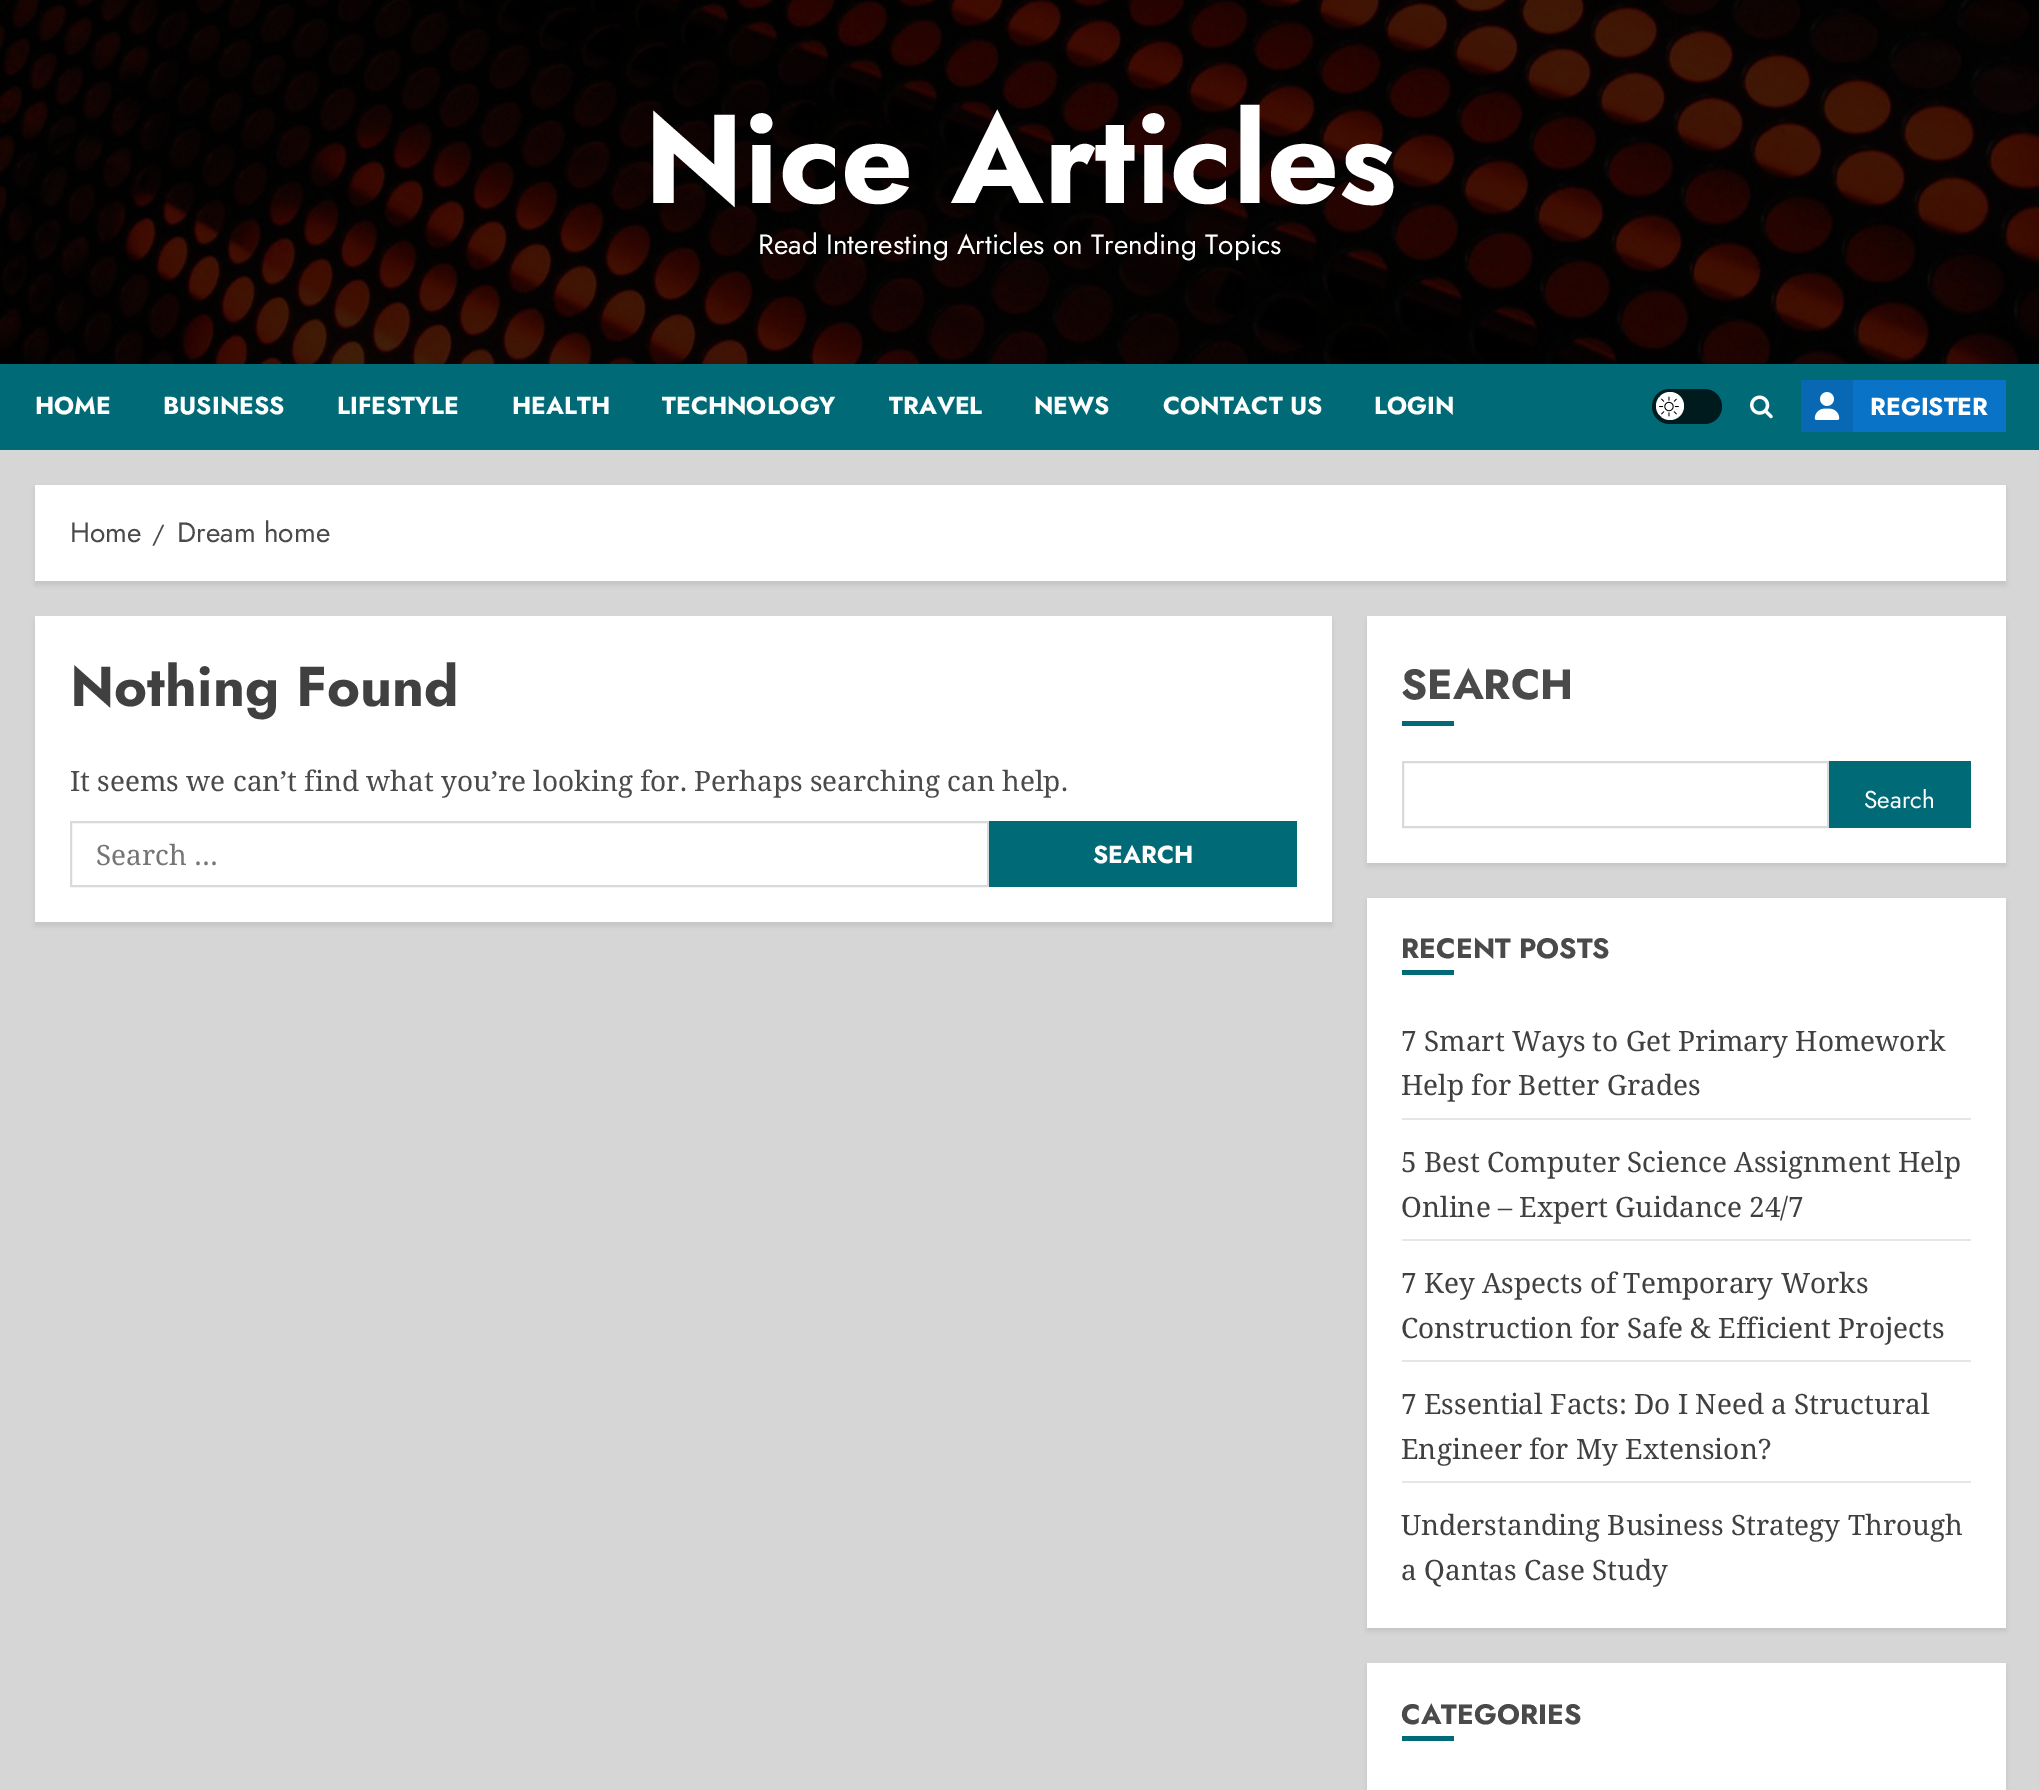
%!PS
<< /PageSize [2039 1790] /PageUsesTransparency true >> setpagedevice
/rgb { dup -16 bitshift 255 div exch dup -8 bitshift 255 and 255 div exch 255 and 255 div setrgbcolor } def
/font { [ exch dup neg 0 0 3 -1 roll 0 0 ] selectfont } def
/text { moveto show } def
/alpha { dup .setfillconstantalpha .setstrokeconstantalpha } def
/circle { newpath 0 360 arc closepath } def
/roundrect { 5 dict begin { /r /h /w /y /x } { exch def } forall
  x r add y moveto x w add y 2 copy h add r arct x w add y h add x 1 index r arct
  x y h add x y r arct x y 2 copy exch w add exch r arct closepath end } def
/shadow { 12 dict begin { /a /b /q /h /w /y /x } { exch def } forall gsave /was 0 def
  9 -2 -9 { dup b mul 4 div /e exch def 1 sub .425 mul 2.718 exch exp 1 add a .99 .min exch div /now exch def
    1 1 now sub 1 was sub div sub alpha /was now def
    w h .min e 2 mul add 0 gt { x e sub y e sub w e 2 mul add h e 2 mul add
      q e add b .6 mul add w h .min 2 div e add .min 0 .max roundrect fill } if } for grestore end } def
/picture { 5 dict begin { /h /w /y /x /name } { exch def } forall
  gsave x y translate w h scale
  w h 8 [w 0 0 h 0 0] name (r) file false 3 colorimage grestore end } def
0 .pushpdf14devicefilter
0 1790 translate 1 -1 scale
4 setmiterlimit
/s1 { /Jost-Bold 126 font 16#FFFFFF rgb } def
/s2 { /Jost-Regular 28 font 16#FFFFFF rgb } def
/s3 { /Jost-Bold 24.5 font 16#FFFFFF rgb } def
/s4 { /Jost-Regular 28 font 16#4A4A4A rgb } def
/s5 { /Jost-Regular 24.5 font 16#4A4A4A rgb } def
/s6 { /Jost-Bold 56 font 16#404040 rgb } def
/s7 { /NotoSerif-Regular 28 font 16#4A4A4A rgb } def
/s8 { /NotoSerif-Regular 28 font 16#757575 rgb } def
/s9 { /Jost-Bold 42 font 16#4A4A4A rgb } def
/s10 { /Jost-Regular 24.5 font 16#FFFFFF rgb } def
/s11 { /Jost-Bold 28 font 16#4A4A4A rgb } def
/s12 { /NotoSerif-Regular 28 font 16#404040 rgb } def
16#D6D6D6 rgb
0 0 2039 1790 rectfill
(pic1.raw) 0 0 2039 364 picture
s1
(Nice Articles) 644 203 text
s2
(Read Interesting Articles on Trending Topics) 758 254 text
16#006B77 rgb
0 364 2039 86 rectfill
s3
(HOME) 35 414 text
(BUSINESS) 163 414 text
(LIFESTYLE) 337 414 text
(HEALTH) 512 414 text
(TECHNOLOGY) 662 414 text
(TRAVEL) 889 414 text
(NEWS) 1034 414 text
(CONTACT US) 1163 414 text
(LOGIN) 1374 414 text
16#001B1E rgb
1652 389 70 35 17.5 roundrect fill
16#FFFFFF rgb
1670 406 14 circle fill
(pic2.raw) 1659 396 20 21 picture
(pic3.raw) 1750 395 23 24 picture
16#0973C7 rgb
1853 380 153 52 rectfill
16#0868B3 rgb
1801 380 52 52 rectfill
(pic4.raw) 1814 392 26 28 picture
s3
(REGISTER) 1870 415 text
16#000000 rgb
35 488 1971 97 0 2 0.08 shadow
16#FFFFFF rgb
35 485 1971 96 rectfill
s4
(Home) 70 542 text
s5
(/) 152 542 text
s4
(Dream home) 177 542 text
16#000000 rgb
35 620 1297 306 0 2 0.08 shadow
16#FFFFFF rgb
35 616 1297 306 rectfill
s6
(Nothing Found) 70 706 text
s7
(It seems we can’t find what you’re looking for. Perhaps searching can help.) 70 791 text
16#D9D9D9 rgb
2 setlinewidth
71 822 917 64 rectstroke
s8
(Search …) 96 865 text
16#006B77 rgb
989 821 308 66 rectfill
s3
(SEARCH) 1093 863 text
16#000000 rgb
1367 620 639 246 0 2 0.08 shadow
16#FFFFFF rgb
1367 616 639 247 rectfill
s9
(SEARCH) 1401 699 text
16#006B77 rgb
1402 721 52 5 rectfill
16#D9D9D9 rgb
1403 762 425 65 rectstroke
16#006B77 rgb
1829 761 142 67 rectfill
s10
(Search) 1864 808 text
16#000000 rgb
1367 901 639 730 0 2 0.08 shadow
16#FFFFFF rgb
1367 898 639 730 rectfill
s11
(RECENT POSTS) 1401 958 text
16#006B77 rgb
1402 970 52 5 rectfill
16#E6E6E6 rgb
1402 1118 569 2 rectfill
s12
(7 Smart Ways to Get Primary Homework) 1401 1051 text
(Help for Better Grades) 1401 1095 text
16#E6E6E6 rgb
1402 1239 569 2 rectfill
s12
(5 Best Computer Science Assignment Help) 1401 1172 text
(Online – Expert Guidance 24/7) 1401 1217 text
16#E6E6E6 rgb
1402 1360 569 2 rectfill
s12
(7 Key Aspects of Temporary Works) 1401 1293 text
(Construction for Safe & Efficient Projects) 1401 1338 text
16#E6E6E6 rgb
1402 1481 569 2 rectfill
s12
(7 Essential Facts: Do I Need a Structural) 1401 1414 text
(Engineer for My Extension?) 1401 1459 text
(Understanding Business Strategy Through) 1401 1535 text
(a Qantas Case Study) 1401 1580 text
16#000000 rgb
1367 1666 639 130 0 2 0.08 shadow
16#FFFFFF rgb
1367 1663 639 127 rectfill
s11
(CATEGORIES) 1401 1724 text
16#006B77 rgb
1402 1736 52 5 rectfill
.poppdf14devicefilter showpage
